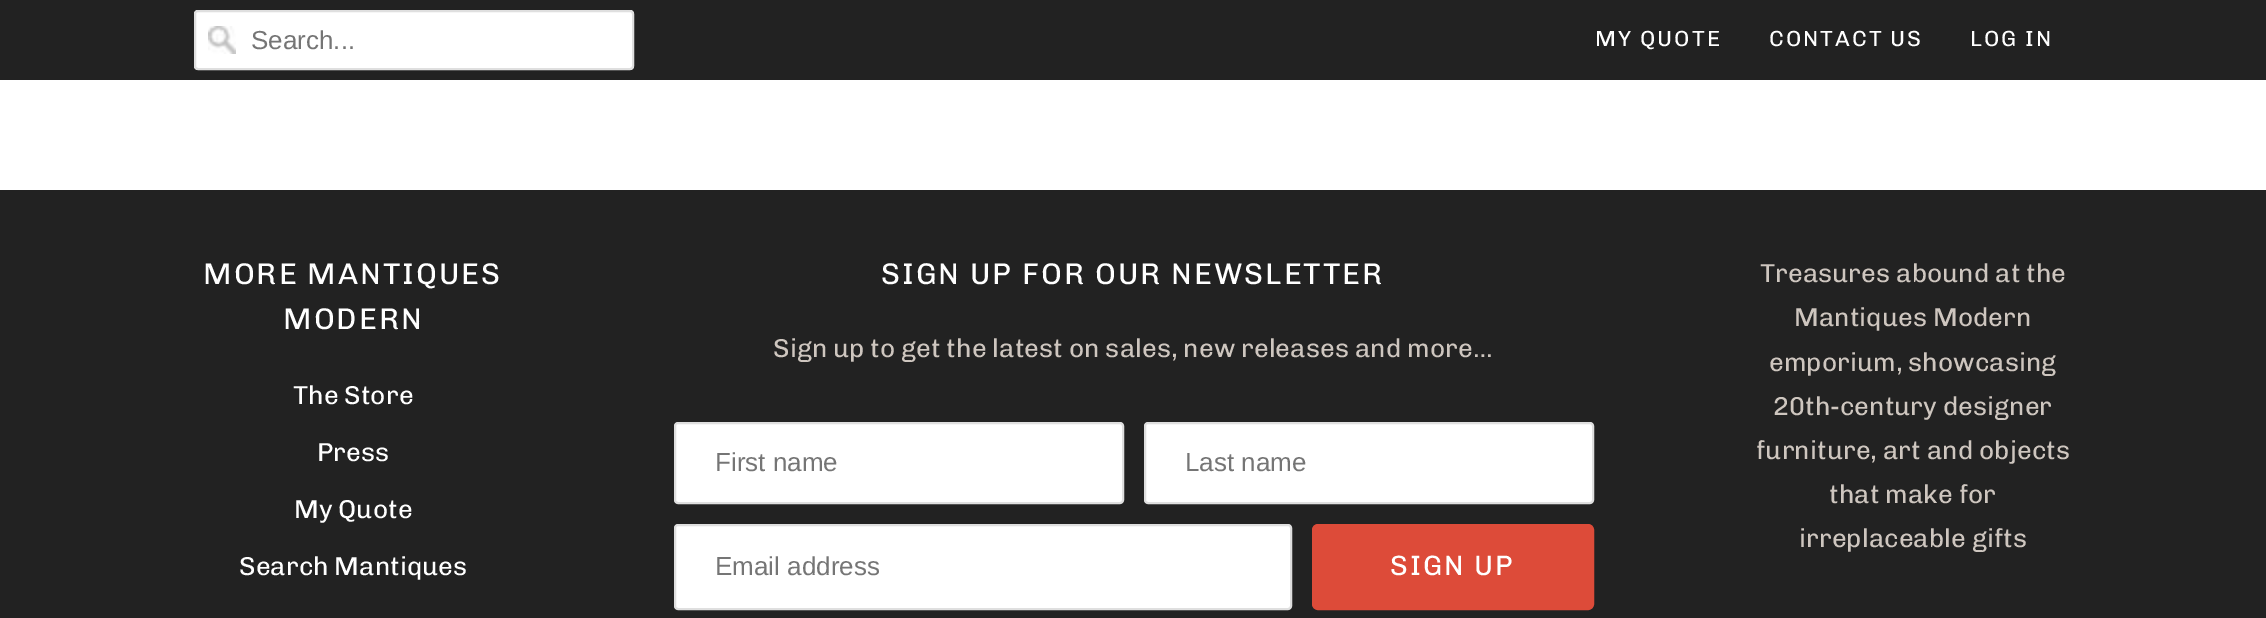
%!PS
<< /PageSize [2266 618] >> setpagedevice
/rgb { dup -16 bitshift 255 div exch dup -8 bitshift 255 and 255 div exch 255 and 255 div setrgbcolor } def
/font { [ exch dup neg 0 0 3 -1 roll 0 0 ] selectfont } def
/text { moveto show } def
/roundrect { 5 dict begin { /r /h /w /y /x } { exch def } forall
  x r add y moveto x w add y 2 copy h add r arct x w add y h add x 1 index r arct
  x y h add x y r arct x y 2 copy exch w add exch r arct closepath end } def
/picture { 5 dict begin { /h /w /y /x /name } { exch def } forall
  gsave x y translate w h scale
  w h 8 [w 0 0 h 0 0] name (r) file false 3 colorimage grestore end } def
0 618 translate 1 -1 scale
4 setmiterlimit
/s1 { /LiberationSans-Regular 26 font 16#757575 rgb } def
/s2 { /Chivo-Regular 26 font 16#FFFFFF rgb } def
/s3 { /Chivo-Regular 26 font 16#CEC6BF rgb } def
16#FFFFFF rgb
0 0 2266 618 rectfill
16#222222 rgb
0 0 2266 80 rectfill
16#FFFFFF rgb
194 10 440 60 4 roundrect fill
(pic1.raw) 208 26 28 28 picture
16#DFDFDF rgb
2 setlinewidth
195 11 438 58 3 roundrect stroke
s1
(Search...) 251 49 text
/Chivo-Regular 22 font
16#FFFFFF rgb
1595 46 moveto 2 0 (MY QUOTE) ashow
1769 46 moveto 2 0 (CONTACT US) ashow
1970 46 moveto 2 0 (LOG IN) ashow
16#222222 rgb
0 190 2266 428 rectfill
/Chivo-Regular 30 font
16#FFFFFF rgb
203 284 moveto 2 0 (MORE MANTIQUES) ashow
283 329 moveto 2 0 (MODERN) ashow
s2
(The Store) 293 404 text
(Press) 317 461 text
(My Quote) 294 518 text
(Search Mantiques) 239 575 text
/Chivo-Regular 30 font
881 284 moveto 2 0 (SIGN UP FOR OUR NEWSLETTER) ashow
s3
(Sign up to get the latest on sales, new releases and more…) 773 357 text
16#FFFFFF rgb
675 423 448 80 3 roundrect gsave fill grestore
16#DFDFDF rgb
stroke
s1
(First name) 715 471 text
16#FFFFFF rgb
1145 423 448 80 3 roundrect gsave fill grestore
16#DFDFDF rgb
stroke
s1
(Last name) 1185 471 text
16#FFFFFF rgb
675 525 616 84 3 roundrect gsave fill grestore
16#DFDFDF rgb
stroke
s1
(Email address) 715 575 text
16#DD4B39 rgb
1313 525 280 84 5 roundrect gsave fill grestore
stroke
/Chivo-Regular 28 font
16#FFFFFF rgb
1390 575 moveto 2 0 (SIGN UP) ashow
s3
(Treasures abound at the) 1760 282 text
(Mantiques Modern) 1794 326 text
(emporium, showcasing) 1769 371 text
(20th-century designer) 1773 415 text
(furniture, art and objects) 1756 459 text
(that make for) 1829 503 text
(irreplaceable gifts) 1799 547 text
showpage
